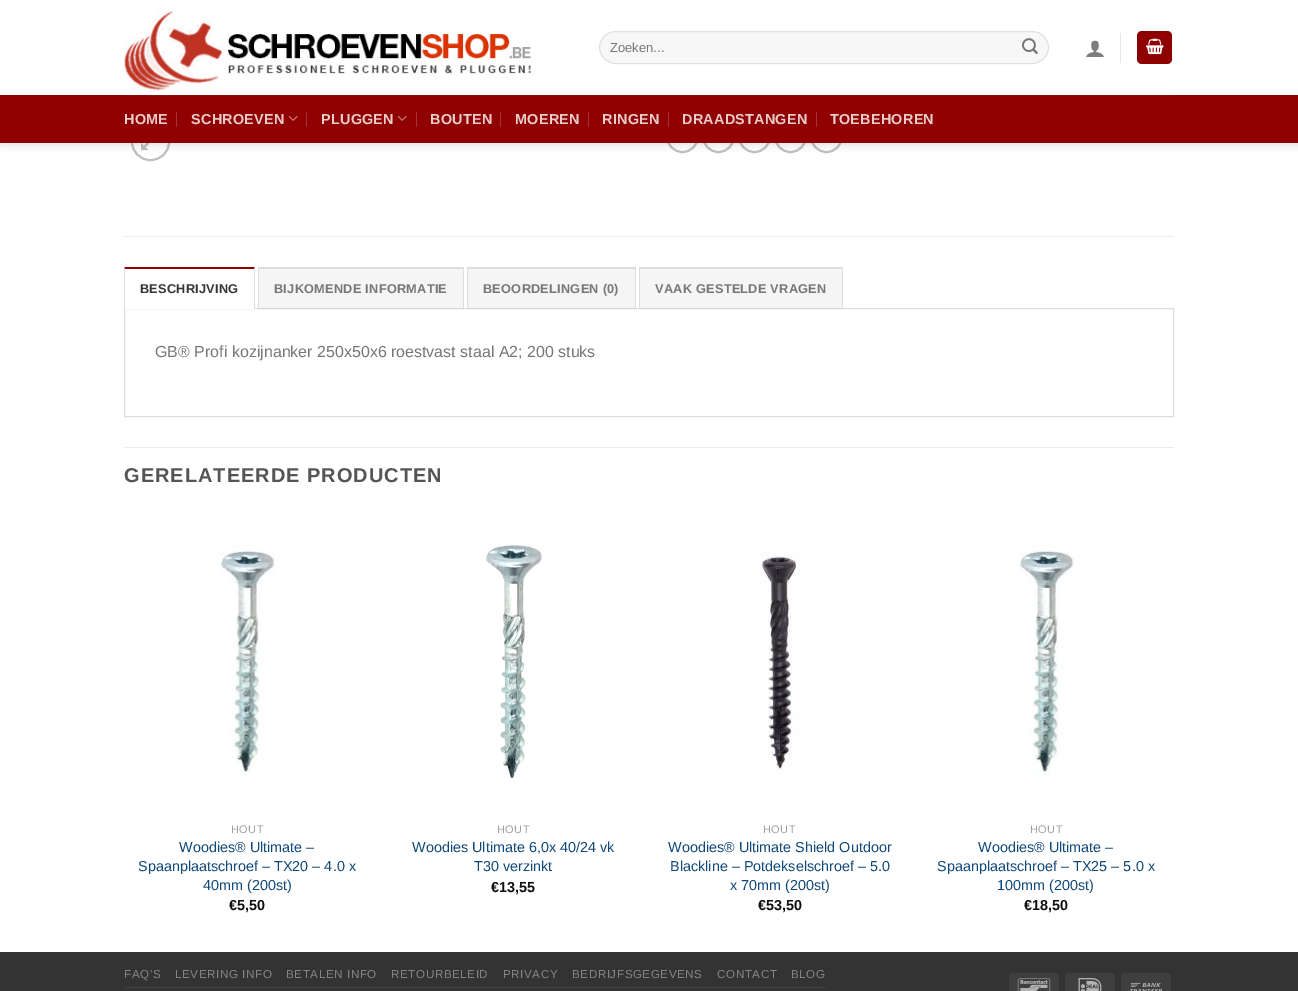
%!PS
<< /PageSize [1298 991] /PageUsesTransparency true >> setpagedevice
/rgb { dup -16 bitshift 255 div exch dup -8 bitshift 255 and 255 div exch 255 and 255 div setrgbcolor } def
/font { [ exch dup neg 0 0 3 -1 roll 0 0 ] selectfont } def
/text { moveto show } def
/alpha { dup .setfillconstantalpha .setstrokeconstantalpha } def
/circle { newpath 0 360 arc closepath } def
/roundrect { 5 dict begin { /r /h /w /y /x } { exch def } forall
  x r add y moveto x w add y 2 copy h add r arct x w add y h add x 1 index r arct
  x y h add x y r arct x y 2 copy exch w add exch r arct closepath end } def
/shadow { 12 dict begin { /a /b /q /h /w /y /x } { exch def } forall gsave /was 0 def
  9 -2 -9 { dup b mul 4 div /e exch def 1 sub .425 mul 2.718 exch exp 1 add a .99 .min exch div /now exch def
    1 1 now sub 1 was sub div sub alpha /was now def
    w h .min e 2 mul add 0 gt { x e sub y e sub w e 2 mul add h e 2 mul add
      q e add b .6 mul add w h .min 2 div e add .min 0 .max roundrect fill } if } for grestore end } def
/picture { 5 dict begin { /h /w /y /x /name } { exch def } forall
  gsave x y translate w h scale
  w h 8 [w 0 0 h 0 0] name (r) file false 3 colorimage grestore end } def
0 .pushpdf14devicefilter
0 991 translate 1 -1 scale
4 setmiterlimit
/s1 { /LiberationSans-Regular 13 font 16#777777 rgb } def
/s2 { /LiberationSans-Regular 16 font 16#777777 rgb } def
/s3 { /LiberationSans-Regular 14.4 font 16#0F4879 rgb } def
/s4 { /LiberationSans-Bold 14.4 font 16#111111 rgb } def
16#FFFFFF rgb
0 0 1298 991 rectfill
16#C0C0C0 rgb
2 setlinewidth
132 124 37 36 18 roundrect stroke
(pic6.raw) 141 143 9 8 picture
682.5 136.5 15.5 circle stroke
718.5 136.5 15.5 circle stroke
754.5 136.5 15.5 circle stroke
790.5 136.5 15.5 circle stroke
826.5 136.5 15.5 circle stroke
16#000000 rgb
1 1 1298 143 0 5 0.15 shadow
16#FFFFFF rgb
0 0 1298 95 rectfill
(pic1.raw) 124 10 408 82 picture
16#F7F7F7 rgb
599 31 450 33 16.5 roundrect fill
0.09 alpha
16#000000 rgb
1 setlinewidth
599.5 31.5 449 32 16 roundrect stroke
1 alpha
s1
(Zoeken...) 610 52 text
(pic2.raw) 1022 38 16 16 picture
(pic3.raw) 1086 40 18 17 picture
16#E6E6E6 rgb
1120 33 1 30 rectfill
16#8F0000 rgb
1137 31 35 33 5 roundrect fill
0.05 alpha
16#000000 rgb
1137.5 31.5 34 32 rectstroke
1 alpha
(pic4.raw) 1146 38 18 17 picture
16#900000 rgb
0 95 1298 48 rectfill
16#8D0C0C rgb
124 95 1050 1 rectfill
/LiberationSans-Bold 14.4 font
16#E9CCCC rgb
124 124 moveto 0.25 0 (HOME) ashow
16#A63333 rgb
176 112 1 15 rectfill
16#E9CCCC rgb
191 124 moveto 0.25 0 (SCHROEVEN) ashow
(pic5.raw) 288 115 10 6 picture
16#A63333 rgb
306 112 1 15 rectfill
16#E9CCCC rgb
321 124 moveto 0.25 0 (PLUGGEN) ashow
(pic5.raw) 397 115 10 6 picture
16#A63333 rgb
416 112 1 15 rectfill
16#E9CCCC rgb
430 124 moveto 0.25 0 (BOUTEN) ashow
16#A63333 rgb
500 112 1 15 rectfill
16#E9CCCC rgb
515 124 moveto 0.25 0 (MOEREN) ashow
16#A63333 rgb
588 112 1 15 rectfill
16#E9CCCC rgb
602 124 moveto 0.25 0 (RINGEN) ashow
16#A63333 rgb
668 112 1 15 rectfill
16#E9CCCC rgb
682 124 moveto 0.25 0 (DRAADSTANGEN) ashow
16#A63333 rgb
816 112 1 15 rectfill
16#E9CCCC rgb
830 124 moveto 0.25 0 (TOEBEHOREN) ashow
16#ECECEC rgb
124 236 1050 1 rectfill
16#DDDDDD rgb
124.5 308.5 1049 108 rectstroke
16#FFFFFF rgb
124 308 131 1 rectfill
16#8F0000 rgb
124 267 moveto 255 267 lineto 254 269 lineto 125 269 lineto closepath fill
16#DDDDDD rgb
255 267 moveto 255 309 lineto 254 309 lineto 254 269 lineto closepath fill
124 309 moveto 124 267 lineto 125 269 lineto 125 309 lineto closepath fill
/LiberationSans-Bold 12.75 font
16#353535 rgb
140 293 moveto 0.25 0 (BESCHRIJVING) ashow
0.04 alpha
16#000000 rgb
259 269 204 40 rectfill
1 alpha
16#DDDDDD rgb
258 267 206 2 rectfill
463 267 1 42 rectfill
258 267 1 42 rectfill
16#777777 rgb
274 293 moveto 0.25 0 (BIJKOMENDE INFORMATIE) ashow
0.04 alpha
16#000000 rgb
468 269 167 40 rectfill
1 alpha
16#DDDDDD rgb
467 267 169 2 rectfill
635 267 1 42 rectfill
467 267 1 42 rectfill
16#777777 rgb
483 293 moveto 0.25 0 (BEOORDELINGEN \(0\)) ashow
0.04 alpha
16#000000 rgb
640 269 202 40 rectfill
1 alpha
16#DDDDDD rgb
639 267 204 2 rectfill
842 267 1 42 rectfill
639 267 1 42 rectfill
16#777777 rgb
655 293 moveto 0.25 0 (VAAK GESTELDE VRAGEN) ashow
s2
(GB® Profi kozijnanker 250x50x6 roestvast staal A2; 200 stuks) 155 357 text
16#ECECEC rgb
124 447 1050 1 rectfill
/LiberationSans-Bold 20 font
16#555555 rgb
124 482 moveto 1 0 (GERELATEERDE PRODUCTEN) ashow
(pic7.raw) 220 545 55 230 picture
/LiberationSans-Regular 11 font
16#A0A0A0 rgb
231 833 moveto 0.5 0 (HOUT) ashow
s3
(Woodies® Ultimate –) 179 852 text
(Spaanplaatschroef – TX20 – 4.0 x) 138 871 text
(40mm \(200st\)) 203 890 text
s4
(€5,50) 229 910 text
(pic8.raw) 485 545 57 234 picture
/LiberationSans-Regular 11 font
16#A0A0A0 rgb
497 833 moveto 0.5 0 (HOUT) ashow
s3
(Woodies Ultimate 6,0x 40/24 vk) 412 852 text
(T30 verzinkt) 474 871 text
s4
(€13,55) 491 892 text
(pic9.raw) 753 552 47 223 picture
/LiberationSans-Regular 11 font
16#A0A0A0 rgb
763 833 moveto 0.5 0 (HOUT) ashow
s3
(Woodies® Ultimate Shield Outdoor) 668 852 text
(Blackline – Potdekselschroef – 5.0) 670 871 text
(x 70mm \(200st\)) 730 890 text
s4
(€53,50) 758 910 text
(pic7.raw) 1019 545 55 230 picture
/LiberationSans-Regular 11 font
16#A0A0A0 rgb
1030 833 moveto 0.5 0 (HOUT) ashow
s3
(Woodies® Ultimate –) 978 852 text
(Spaanplaatschroef – TX25 – 5.0 x) 937 871 text
(100mm \(200st\)) 997 890 text
s4
(€18,50) 1024 910 text
16#333333 rgb
0 952 1298 39 rectfill
16#404040 rgb
124 987 702 1 rectfill
/LiberationSans-Regular 11.6 font
16#858585 rgb
124 978 moveto 0.6 0 (FAQ’S) ashow
175 978 moveto 0.6 0 (LEVERING INFO) ashow
286 978 moveto 0.6 0 (BETALEN INFO) ashow
391 978 moveto 0.6 0 (RETOURBELEID) ashow
503 978 moveto 0.6 0 (PRIVACY) ashow
572 978 moveto 0.6 0 (BEDRIJFSGEGEVENS) ashow
717 978 moveto 0.6 0 (CONTACT) ashow
791 978 moveto 0.6 0 (BLOG) ashow
16#3F3F3F rgb
1009 973 50 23 5 roundrect fill
(pic10.raw) 1017 978 34 13 picture
1065 973 50 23 5 roundrect fill
(pic11.raw) 1078 978 24 13 picture
1121 973 50 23 5 roundrect fill
(pic12.raw) 1130 983 32 8 picture
.poppdf14devicefilter showpage
